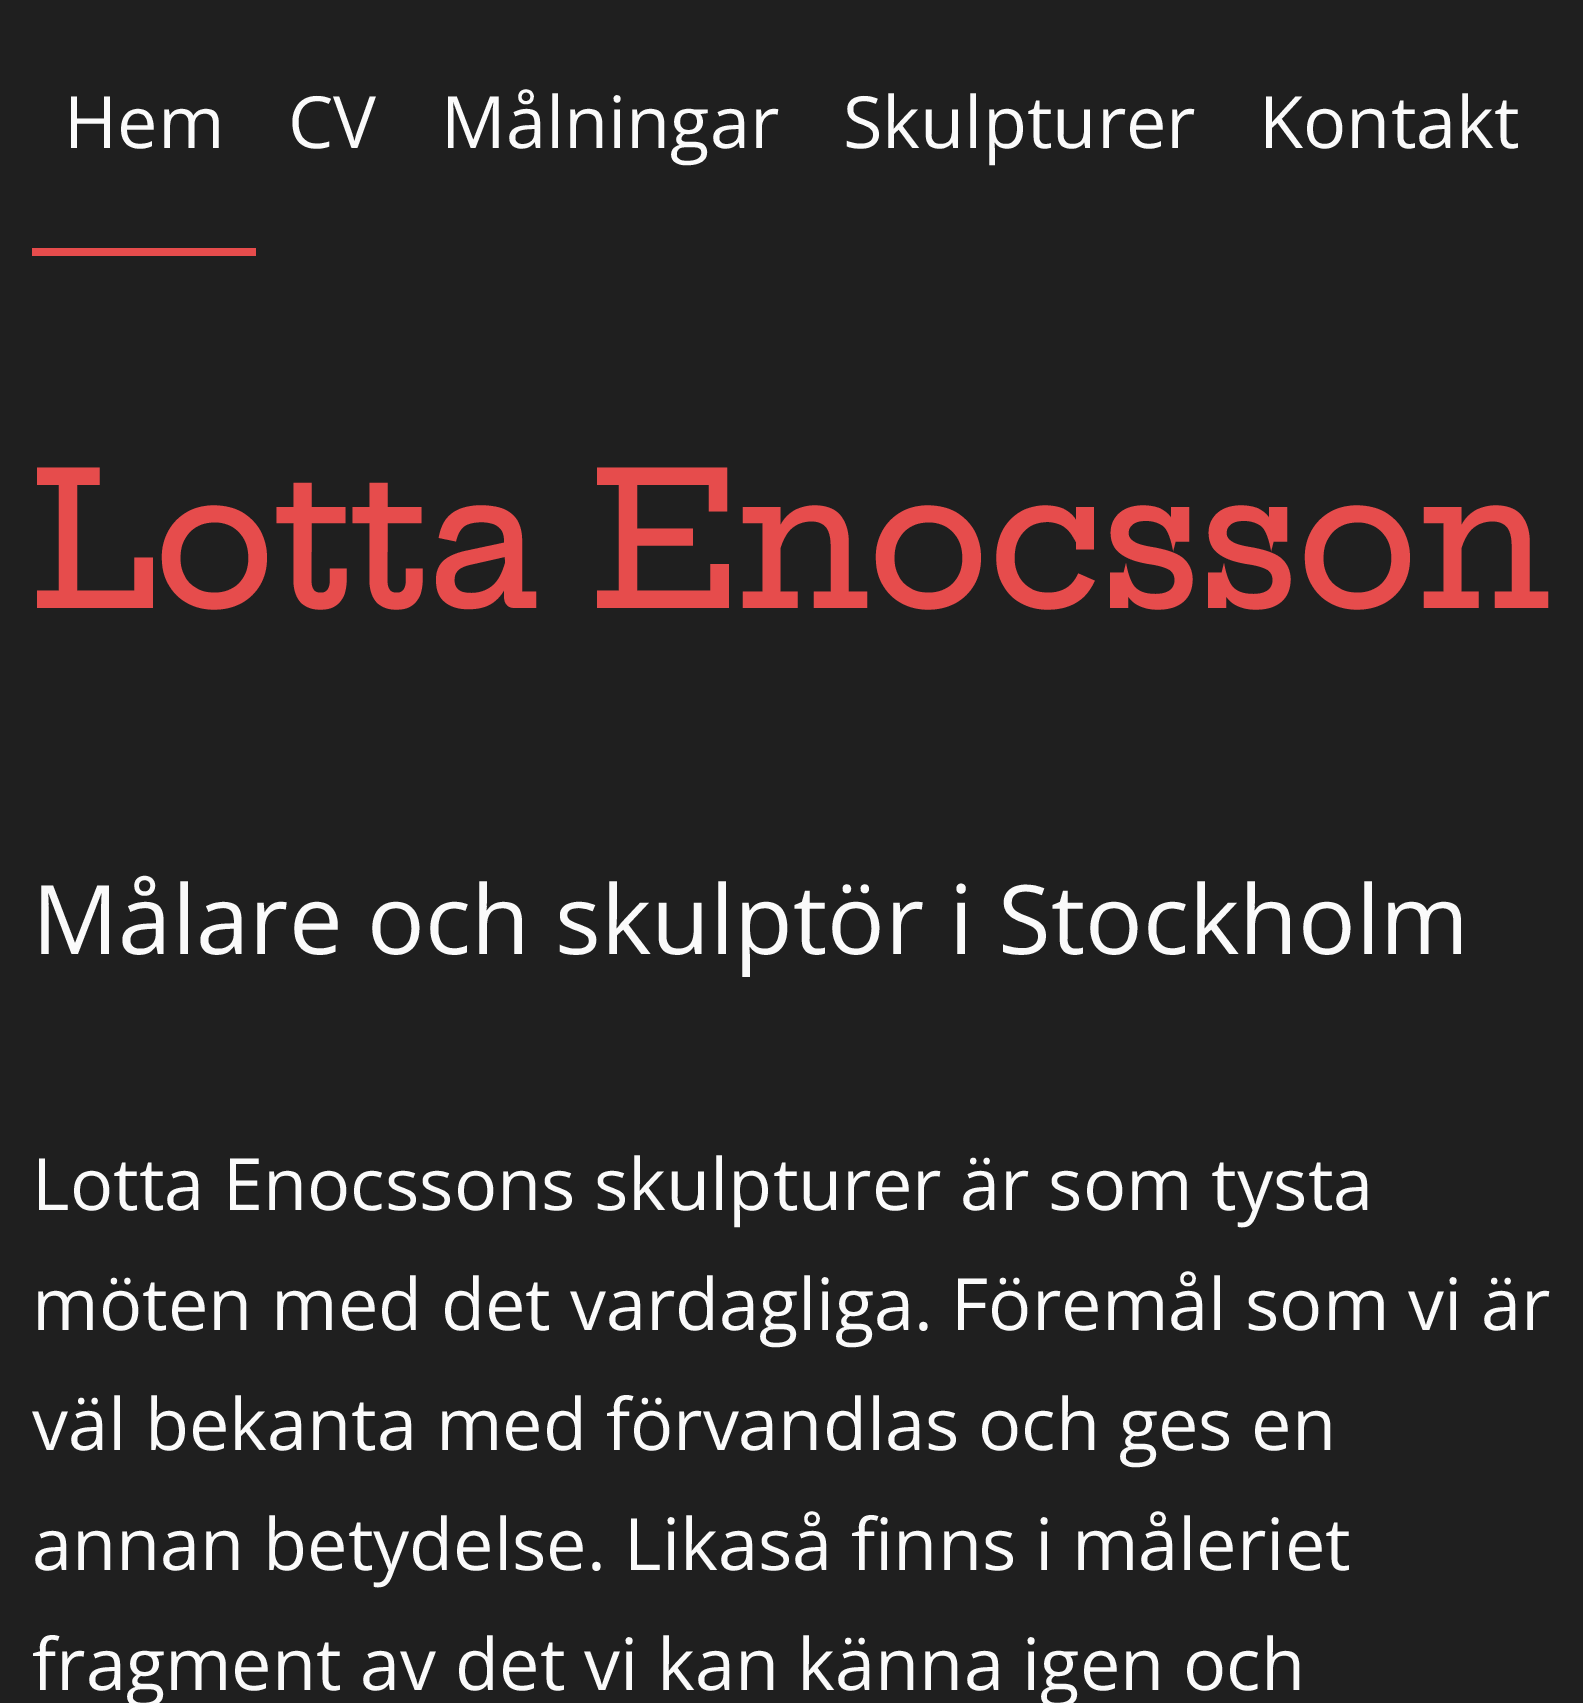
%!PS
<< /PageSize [1583 1703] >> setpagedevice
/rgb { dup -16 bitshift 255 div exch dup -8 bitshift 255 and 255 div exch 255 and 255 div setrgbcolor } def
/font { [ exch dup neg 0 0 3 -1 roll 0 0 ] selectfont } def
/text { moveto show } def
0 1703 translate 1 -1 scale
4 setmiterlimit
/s1 { /OpenSans-Regular 72 font 16#FAFAFA rgb } def
/s2 { /HeptaSlab-Bold 180 font 16#E64C4C rgb } def
/s3 { /OpenSans-Regular 96 font 16#FAFAFA rgb } def
16#1F1F1F rgb
0 0 1583 1703 rectfill
16#E64C4C rgb
32 248 224 8 rectfill
s1
(Hem) 64 148 text
(CV) 288 148 text
(Målningar) 441 148 text
(Skulpturer) 843 148 text
(Kontakt) 1259 148 text
s2
(Lotta Enocsson) 32 608 text
s3
(Målare och skulptör i Stockholm) 32 954 text
s1
(Lotta Enocssons skulpturer är som tysta) 32 1210 text
(möten med det vardagliga. Föremål som vi är) 32 1330 text
(väl bekanta med förvandlas och ges en) 32 1450 text
(annan betydelse. Likaså finns i måleriet) 32 1570 text
(fragment av det vi kan känna igen och) 32 1690 text
showpage
